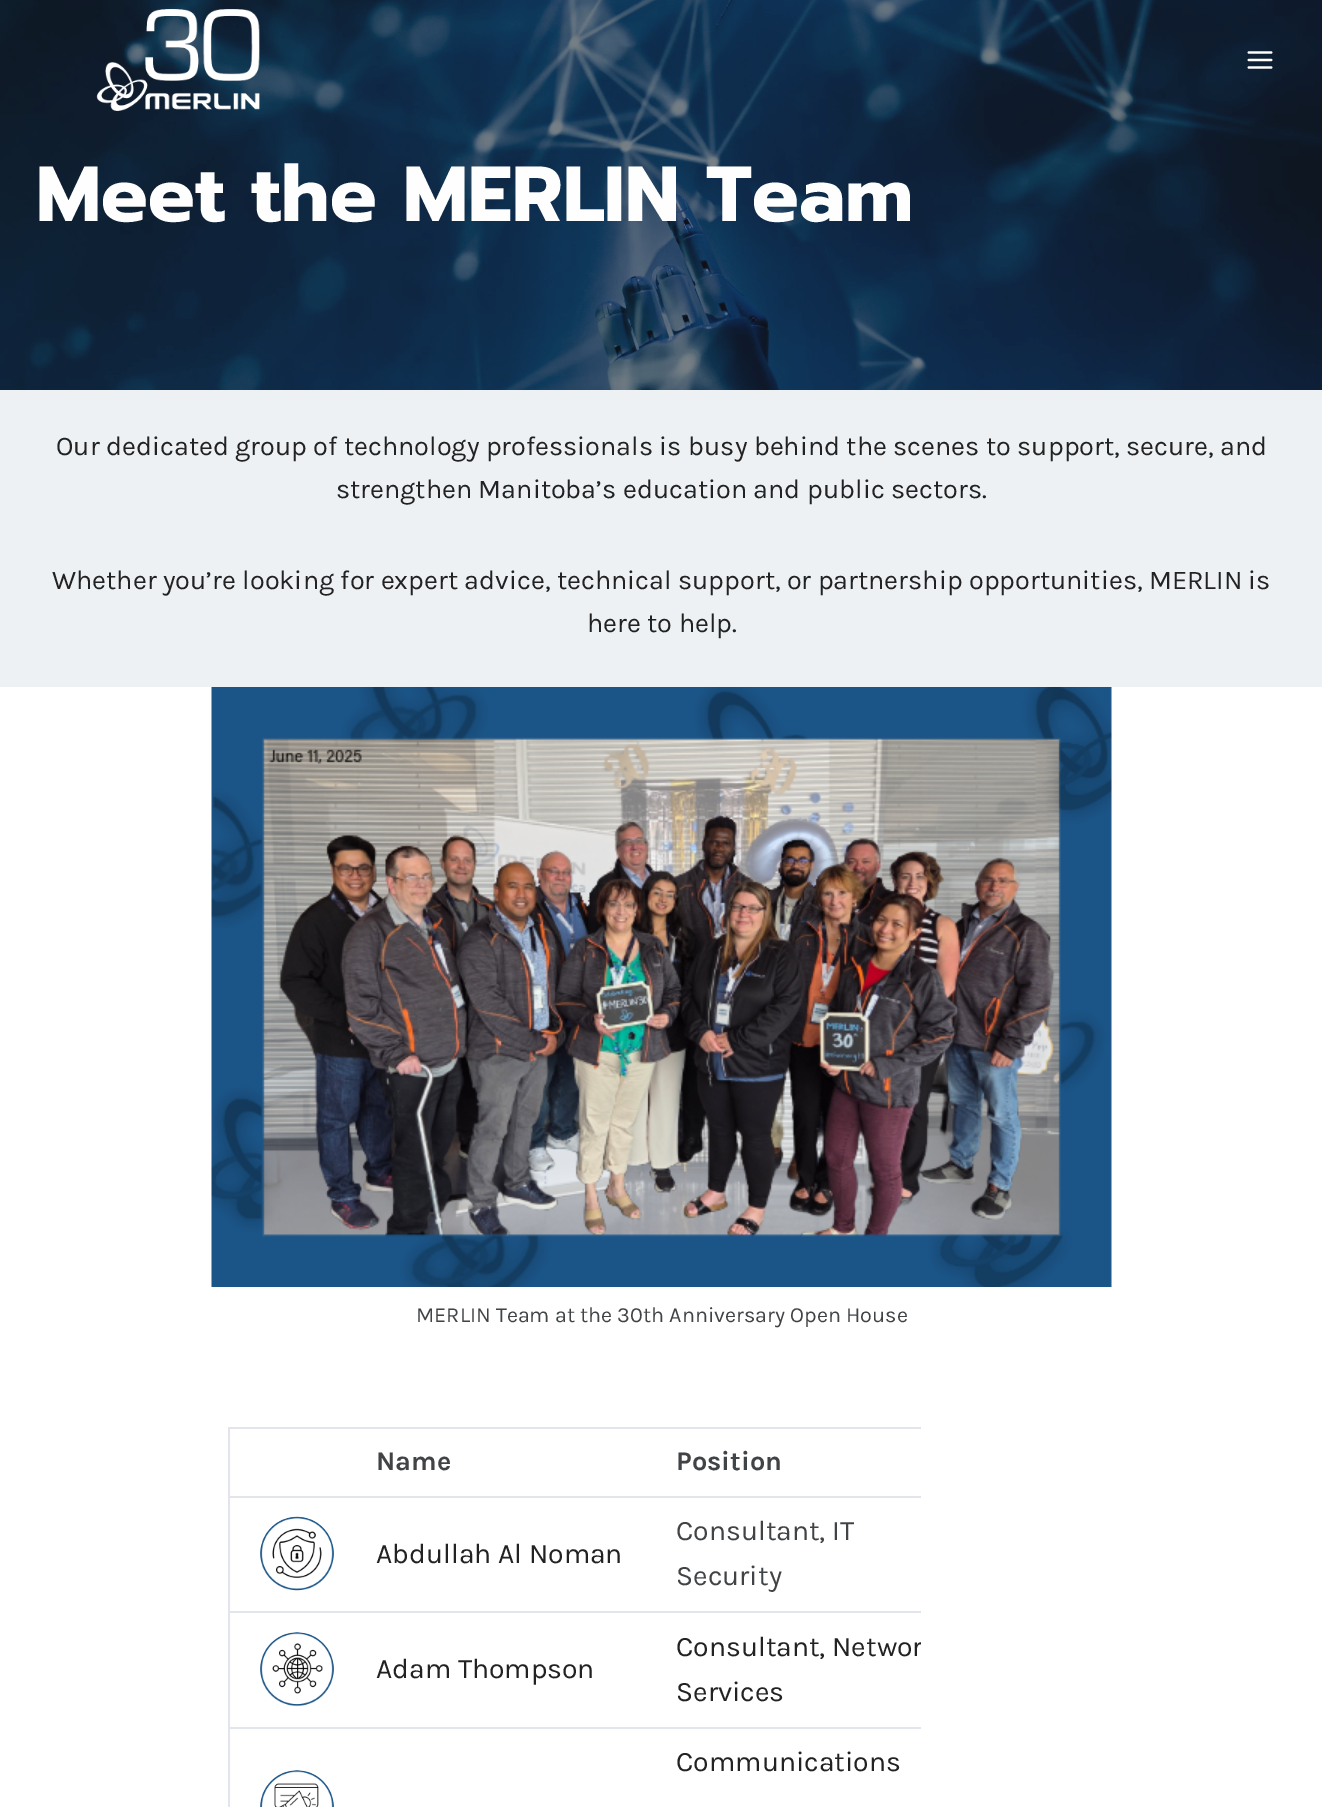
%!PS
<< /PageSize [1322 1807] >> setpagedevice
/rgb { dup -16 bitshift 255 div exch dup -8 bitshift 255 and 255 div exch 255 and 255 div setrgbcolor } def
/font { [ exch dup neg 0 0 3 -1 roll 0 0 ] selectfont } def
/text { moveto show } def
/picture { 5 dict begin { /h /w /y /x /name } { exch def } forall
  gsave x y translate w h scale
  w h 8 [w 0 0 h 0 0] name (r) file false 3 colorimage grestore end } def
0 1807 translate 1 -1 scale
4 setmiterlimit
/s1 { /Prompt-Bold 78 font 16#FEFEFE rgb } def
/s2 { /Karla-Regular 27 font 16#222222 rgb } def
/s3 { /Karla-Regular 21.6 font 16#414447 rgb } def
/s4 { /Karla-Bold 27 font 16#414447 rgb } def
/s5 { /Karla-Regular 28.25 font 16#222222 rgb } def
/s6 { /Karla-Regular 28.25 font 16#414447 rgb } def
16#FFFFFF rgb
0 0 1322 1807 rectfill
(pic3.raw) 0 0 1322 390 picture
(pic1.raw) 96 9 164 102 picture
(pic2.raw) 1247 51 26 18 picture
s1
(Meet the MERLIN Team) 36 221 text
16#EDF1F4 rgb
0 390 1322 297 rectfill
s2
(Our dedicated group of technology professionals is busy behind the scenes to support, secure, and) 56 455 text
(strengthen Manitoba’s education and public sectors.) 336 498 text
(Whether you’re looking for expert advice, technical support, or partnership opportunities, MERLIN is) 52 589 text
(here to help.) 587 632 text
(pic4.raw) 211 687 901 600 picture
s3
(MERLIN Team at the 30th Anniversary Open House) 416 1322 text
16#E2E6EC rgb
228 1427 693 2 rectfill
228 1496 693 2 rectfill
228 1611 693 2 rectfill
228 1727 693 2 rectfill
228 1727 2 80 rectfill
228 1611 2 117 rectfill
228 1496 2 117 rectfill
228 1427 2 70 rectfill
s4
(Name) 376 1470 text
(Position) 676 1470 text
(pic5.raw) 260 1516 74 75 picture
s5
(Abdullah Al Noman) 376 1563 text
s6
(Consultant, IT) 676 1540 text
(Security) 676 1585 text
(pic6.raw) 260 1632 74 75 picture
s5
(Adam Thompson) 376 1678 text
gsave
228 1427 693 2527 rectclip
(Consultant, Networ) 676 1656 text
grestore
(Services) 676 1701 text
(Communications) 676 1771 text
(pic7.raw) 260 1770 74 37 picture
showpage
